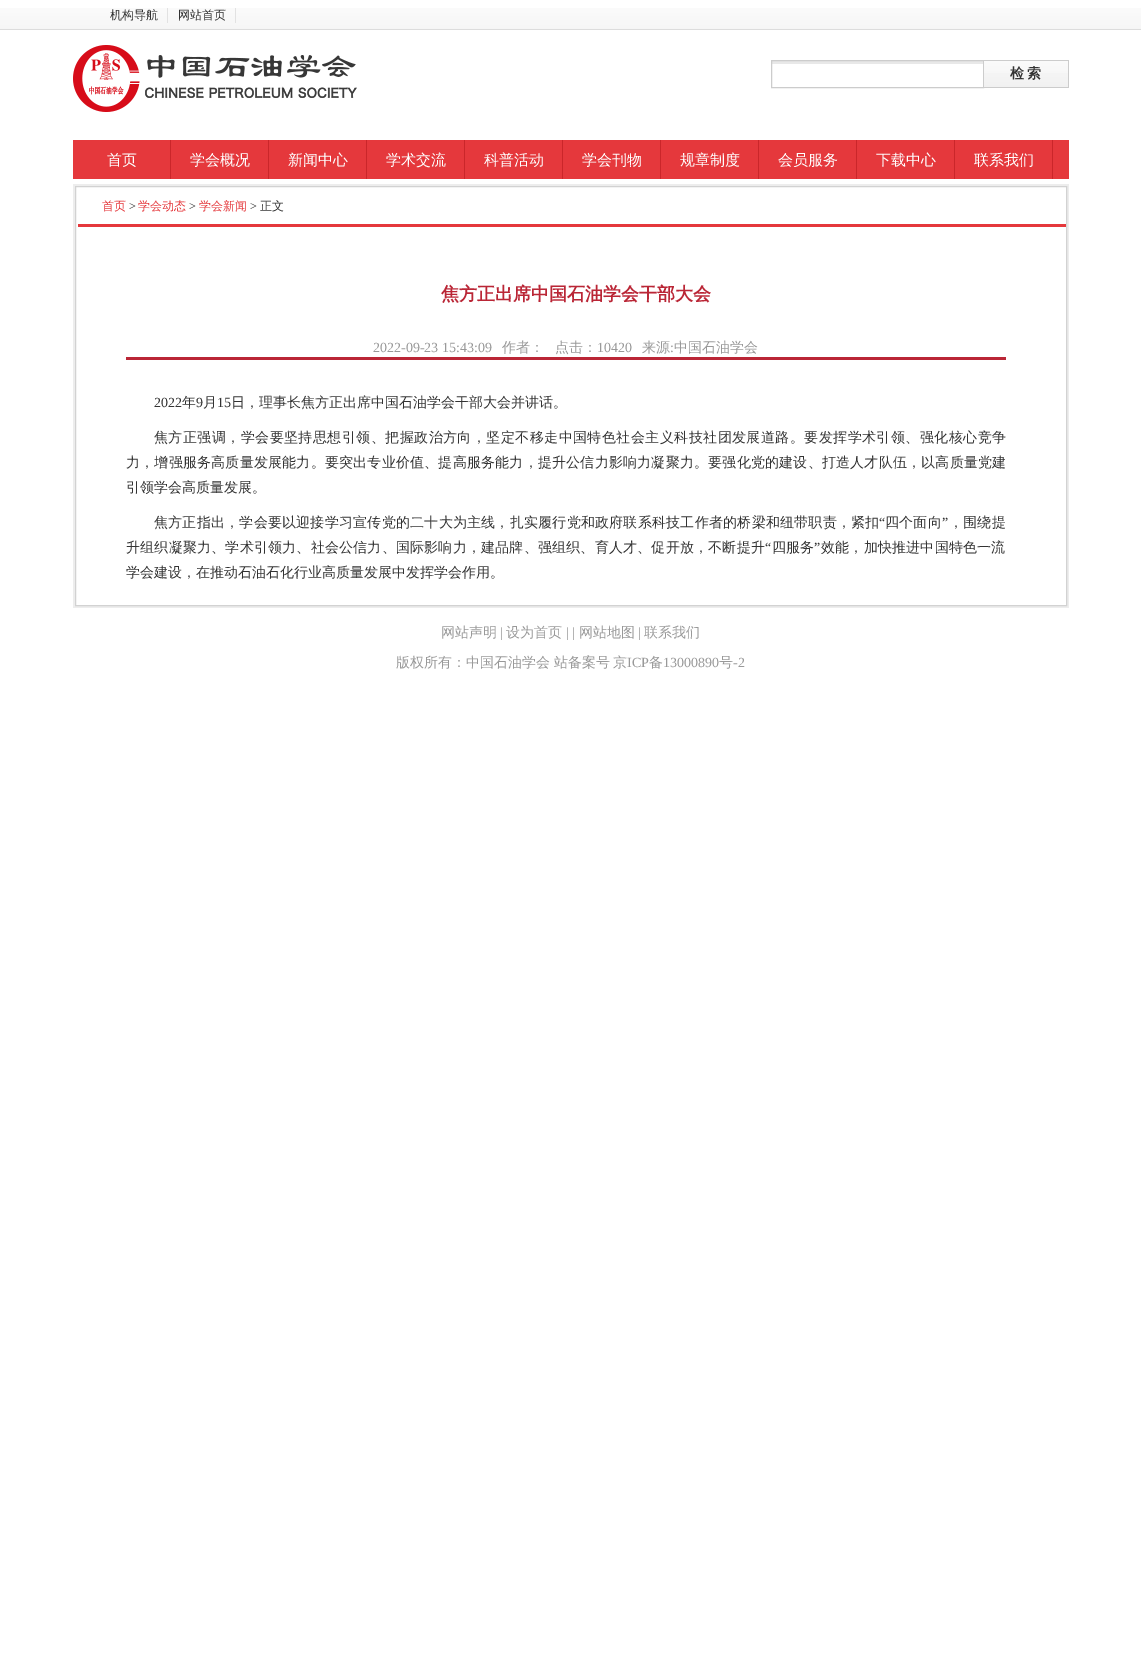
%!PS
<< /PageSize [1141 1676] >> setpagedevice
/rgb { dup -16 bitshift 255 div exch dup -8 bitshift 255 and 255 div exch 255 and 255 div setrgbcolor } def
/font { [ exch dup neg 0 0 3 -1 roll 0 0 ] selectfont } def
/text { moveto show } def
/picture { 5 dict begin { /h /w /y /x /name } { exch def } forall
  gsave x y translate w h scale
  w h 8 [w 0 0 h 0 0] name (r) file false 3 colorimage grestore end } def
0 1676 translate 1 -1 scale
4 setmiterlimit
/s1 { /WenQuanYiZenHei-Medium 12 font 16#333333 rgb } def
/s2 { /WenQuanYiZenHei-Medium 15 font 16#FFFFFF rgb } def
/s3 { /WenQuanYiZenHei-Medium 12 font 16#E5383C rgb } def
/s4 { /LiberationSerif-Regular 12 font 16#333333 rgb } def
/s5 { /WenQuanYiZenHei-Bold 18 font 16#BA2636 rgb } def
/s6 { /LiberationSerif-Regular 14 font 16#999999 rgb } def
/s7 { /WenQuanYiZenHei-Medium 14 font 16#999999 rgb } def
/s8 { /LiberationSerif-Regular 14 font 16#333333 rgb } def
/s9 { /WenQuanYiZenHei-Medium 14 font 16#333333 rgb } def
16#FFFFFF rgb
0 0 1141 1676 rectfill
(pic1.raw) 0 8 1141 22 picture
16#E2E2E2 rgb
167 8 1 15 rectfill
s1
(机构导航) 110 19 text
16#E2E2E2 rgb
235 8 1 15 rectfill
s1
(网站首页) 178 19 text
(pic2.raw) 73 45 284 67 picture
16#E8E8E8 rgb
771 61 213 3 rectfill
16#CCCCCC rgb
771.5 60.5 212 27 rectstroke
(pic3.raw) 984 61 84 26 picture
984 60 85 1 rectfill
1068 60 1 28 rectfill
984 87 85 1 rectfill
/WenQuanYiZenHei-Bold 14 font
16#333333 rgb
1010 78 moveto -1 0 32 (检 索) widthshow
16#E5383C rgb
73 140 996 39 rectfill
16#CA262A rgb
170 140 1 39 rectfill
s2
(首页) 107 165 text
16#CA262A rgb
268 140 1 39 rectfill
s2
(学会概况) 190 165 text
16#CA262A rgb
366 140 1 39 rectfill
s2
(新闻中心) 288 165 text
16#CA262A rgb
464 140 1 39 rectfill
s2
(学术交流) 386 165 text
16#CA262A rgb
562 140 1 39 rectfill
s2
(科普活动) 484 165 text
16#CA262A rgb
660 140 1 39 rectfill
s2
(学会刊物) 582 165 text
16#CA262A rgb
758 140 1 39 rectfill
s2
(规章制度) 680 165 text
16#CA262A rgb
856 140 1 39 rectfill
s2
(会员服务) 778 165 text
16#CA262A rgb
954 140 1 39 rectfill
s2
(下载中心) 876 165 text
16#CA262A rgb
1052 140 1 39 rectfill
s2
(联系我们) 974 165 text
16#EDEDED rgb
73 184 996 424 rectfill
16#FFFFFF rgb
75.5 186.5 moveto 1066.5 186.5 lineto 1066.5 605.5 lineto 75.5 605.5 lineto closepath gsave fill grestore
16#D2D2D2 rgb
stroke
16#E5383C rgb
78 224 988 3 rectfill
s3
(首页) 102 210 text
s4
(>) 129 210 text
s3
(学会动态) 138 210 text
s4
(>) 189 210 text
s3
(学会新闻) 199 210 text
s4
(>) 250 210 text
s1
(正文) 260 210 text
s5
(焦方正出席中国石油学会干部大会) 441 300 text
126 357 880 3 rectfill
s6
(2022-09-23 15:43:09) 373 352 text
s7
(作者：) 502 352 text
(点击：) 555 352 text
s6
(10420) 597 352 text
s7
(来源) 642 352 text
s6
(:) 670 352 text
s7
(中国石油学会) 674 352 text
s8
(2022) 154 407 text
s9
(年) 182 407 text
s8
(9) 196 407 text
s9
(月) 203 407 text
s8
(15) 217 407 text
s9
(日，理事长焦方正出席中国石油学会干部大会并讲话。) 231 407 text
154 442 moveto 0.45 0 (焦方正强调，学会要坚持思想引领、把握政治方向，坚定不移走中国特色社会主义科技社团发展道路。要发挥学术引领、强化核心竞争) ashow
126 467 moveto 0.2 0 (力，增强服务高质量发展能力。要突出专业价值、提高服务能力，提升公信力影响力凝聚力。要强化党的建设、打造人才队伍，以高质量党建) ashow
(引领学会高质量发展。) 126 492 text
154 527 moveto 0.23 0 (焦方正指出，学会要以迎接学习宣传党的二十大为主线，扎实履行党和政府联系科技工作者的桥梁和纽带职责，紧扣) ashow
/LiberationSerif-Regular 14 font
879 527 moveto 0.23 0 (“) ashow
/WenQuanYiZenHei-Medium 14 font
885 527 moveto 0.23 0 (四个面向) ashow
/LiberationSerif-Regular 14 font
942 527 moveto 0.23 0 (”) ashow
/WenQuanYiZenHei-Medium 14 font
949 527 moveto 0.23 0 (，围绕提) ashow
126 552 moveto 0.2 0 (升组织凝聚力、学术引领力、社会公信力、国际影响力，建品牌、强组织、育人才、促开放，不断提升) ashow
/LiberationSerif-Regular 14 font
765 552 moveto 0.2 0 (“) ashow
/WenQuanYiZenHei-Medium 14 font
772 552 moveto 0.2 0 (四服务) ashow
/LiberationSerif-Regular 14 font
814 552 moveto 0.2 0 (”) ashow
/WenQuanYiZenHei-Medium 14 font
821 552 moveto 0.2 0 (效能，加快推进中国特色一流) ashow
(学会建设，在推动石油石化行业高质量发展中发挥学会作用。) 126 577 text
s7
(网站声明) 441 637 text
s6
(|) 500 637 text
s7
(设为首页) 506 637 text
s6
(| |) 566 637 text
s7
(网站地图) 579 637 text
s6
(|) 638 637 text
s7
(联系我们) 644 637 text
(版权所有：中国石油学会) 396 667 text
554 667 moveto -1 0 32 (站备案号 京) widthshow
s6
(ICP) 627 667 text
s7
(备) 649 667 text
s6
(13000890) 663 667 text
s7
(号) 719 667 text
s6
(-2) 733 667 text
showpage
